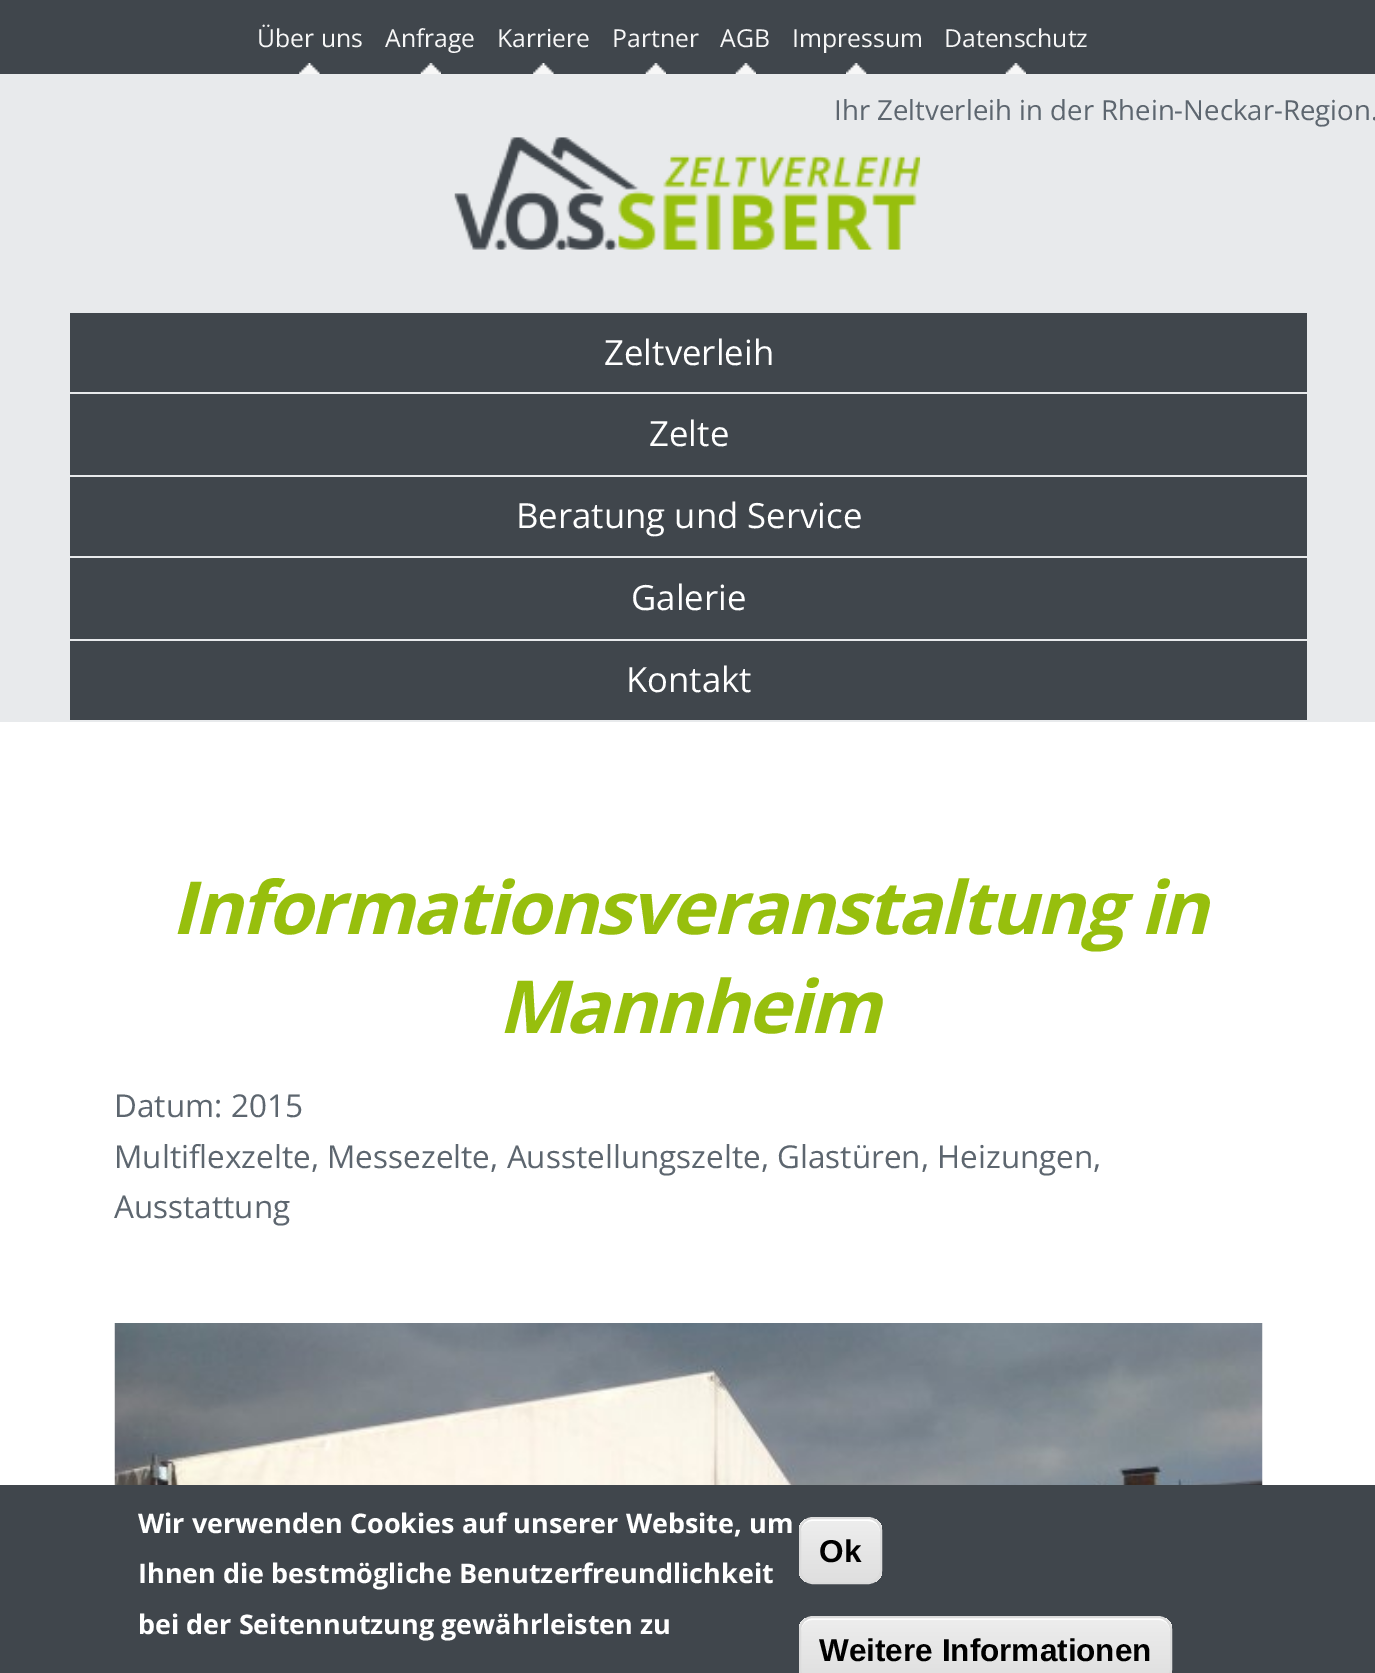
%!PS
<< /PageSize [1375 1673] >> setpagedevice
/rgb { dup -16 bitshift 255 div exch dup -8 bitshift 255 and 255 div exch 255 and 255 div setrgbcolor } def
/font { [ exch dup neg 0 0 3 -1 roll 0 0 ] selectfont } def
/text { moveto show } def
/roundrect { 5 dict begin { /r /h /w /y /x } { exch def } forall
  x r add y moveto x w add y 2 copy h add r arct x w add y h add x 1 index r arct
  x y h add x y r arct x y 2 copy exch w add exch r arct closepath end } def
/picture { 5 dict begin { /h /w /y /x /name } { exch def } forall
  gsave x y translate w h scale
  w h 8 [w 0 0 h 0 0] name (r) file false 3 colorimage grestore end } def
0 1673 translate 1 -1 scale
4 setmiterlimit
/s1 { /OpenSans-Regular 24.75 font 16#F7F7F7 rgb } def
/s2 { /OpenSans-Regular 27.6 font 16#5D666F rgb } def
/s3 { /OpenSans-Regular 34.75 font 16#FFFFFF rgb } def
/s4 { /OpenSans-Regular 31.5 font 16#5D666F rgb } def
/s5 { /OpenSans-Bold 27 font 16#FFFFFF rgb } def
/s6 { /LiberationSans-Bold 31.5 font 16#000000 rgb } def
16#40464C rgb
0 0 1375 1673 rectfill
(pic1.raw) 299 63 21 11 picture
s1
(Über uns) 257 47 text
(pic2.raw) 420 63 21 11 picture
(Anfrage) 385 47 text
(pic1.raw) 533 63 21 11 picture
(Karriere) 497 47 text
(pic2.raw) 645 63 21 11 picture
(Partner) 612 47 text
(pic2.raw) 735 63 21 11 picture
(AGB) 720 47 text
(pic3.raw) 846 63 21 11 picture
(Impressum) 792 47 text
(pic2.raw) 1005 63 21 11 picture
(Datenschutz) 944 47 text
16#E8EAEC rgb
0 74 1375 648 rectfill
s2
(Ihr Zeltverleih in der Rhein-Neckar-Region.) 834 120 text
(pic4.raw) 454 137 467 113 picture
16#40464C rgb
70 313 1237 79 rectfill
s3
(Zeltverleih) 604 365 text
16#40464C rgb
70 394 1237 81 rectfill
s3
(Zelte) 649 446 text
16#40464C rgb
70 477 1237 79 rectfill
s3
(Beratung und Service) 516 528 text
16#40464C rgb
70 558 1237 81 rectfill
s3
(Galerie) 631 610 text
16#40464C rgb
70 641 1237 79 rectfill
s3
(Kontakt) 626 692 text
0 722 1375 763 rectfill
/OpenSans-BoldItalic 73.4 font
16#97BF0D rgb
171 934 moveto -1.8 0 (Informationsveranstaltung in) ashow
498 1033 moveto -1.8 0 (Mannheim) ashow
s4
(Datum: 2015) 114 1117 text
(Multiflexzelte, Messezelte, Ausstellungszelte, Glastüren, Heizungen,) 114 1168 text
(Ausstattung) 114 1218 text
(pic5.raw) 114 1323 1149 162 picture
s5
(Wir verwenden Cookies auf unserer Website, um) 138 1533 text
(Ihnen die bestmögliche Benutzerfreundlichkeit) 138 1583 text
(bei der Seitennutzung gewährleisten zu) 138 1634 text
gsave
799 1517 83 67 14 roundrect clip newpath
gsave 799 1519 moveto 882 1519 lineto 882 1582 lineto 799 1582 lineto closepath clip newpath
<< /ShadingType 2 /ColorSpace /DeviceRGB /Coords [840 1519 840 1582] /Extend [true true] /Function << /FunctionType 3 /Domain [0 1] /Functions [<< /FunctionType 2 /Domain [0 1] /C0 [0.929 0.929 0.929] /C1 [0.929 0.929 0.929] /N 1 >> << /FunctionType 2 /Domain [0 1] /C0 [0.929 0.929 0.929] /C1 [0.875 0.875 0.875] /N 1 >>] /Bounds [0.05] /Encode [0 1 0 1] >> >> shfill grestore
grestore
812 1521 moveto 868 1521 lineto 875 1521 880 1526 880 1532 curveto 880 1518 871 1519 860 1519 curveto 822 1519 lineto 810 1519 801 1518 801 1532 curveto 801 1526 806 1521 812 1521 curveto closepath fill
16#DCDCDC rgb
2 setlinewidth
800 1518 81 65 13 roundrect stroke
s6
(Ok) 819 1562 text
gsave
799 1616 373 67 14 roundrect clip newpath
gsave 799 1618 moveto 1172 1618 lineto 1172 1673 lineto 799 1673 lineto closepath clip newpath
<< /ShadingType 2 /ColorSpace /DeviceRGB /Coords [986 1618 986 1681] /Extend [true true] /Function << /FunctionType 3 /Domain [0 1] /Functions [<< /FunctionType 2 /Domain [0 1] /C0 [0.929 0.929 0.929] /C1 [0.929 0.929 0.929] /N 1 >> << /FunctionType 2 /Domain [0 1] /C0 [0.929 0.929 0.929] /C1 [0.875 0.875 0.875] /N 1 >>] /Bounds [0.05] /Encode [0 1 0 1] >> >> shfill grestore
grestore
16#FFFFFF rgb
812 1620 moveto 1159 1620 lineto 1165 1620 1170 1625 1170 1631 curveto 1170 1624 1166 1618 1159 1618 curveto 810 1618 lineto 803 1620 801 1625 801 1631 curveto 801 1625 806 1620 812 1620 curveto closepath fill
16#DCDCDC rgb
800 1617 371 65 13 roundrect stroke
s6
(Weitere Informationen) 819 1661 text
showpage
